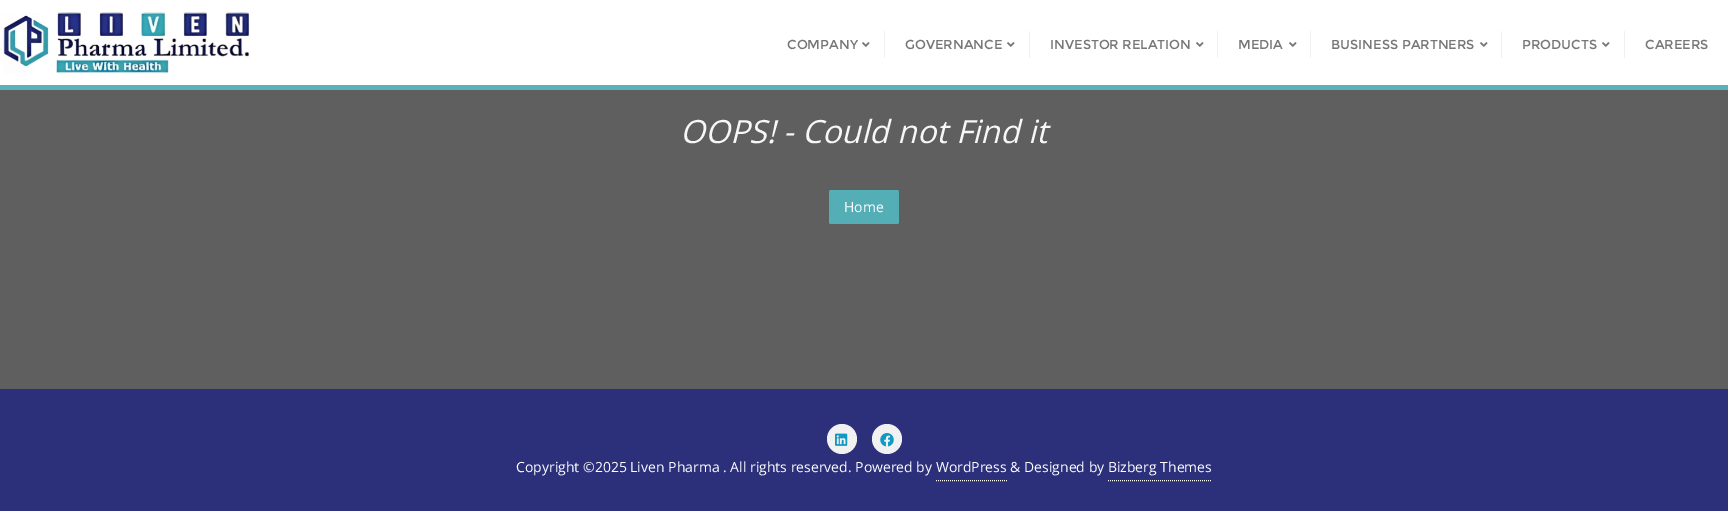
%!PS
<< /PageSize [1728 511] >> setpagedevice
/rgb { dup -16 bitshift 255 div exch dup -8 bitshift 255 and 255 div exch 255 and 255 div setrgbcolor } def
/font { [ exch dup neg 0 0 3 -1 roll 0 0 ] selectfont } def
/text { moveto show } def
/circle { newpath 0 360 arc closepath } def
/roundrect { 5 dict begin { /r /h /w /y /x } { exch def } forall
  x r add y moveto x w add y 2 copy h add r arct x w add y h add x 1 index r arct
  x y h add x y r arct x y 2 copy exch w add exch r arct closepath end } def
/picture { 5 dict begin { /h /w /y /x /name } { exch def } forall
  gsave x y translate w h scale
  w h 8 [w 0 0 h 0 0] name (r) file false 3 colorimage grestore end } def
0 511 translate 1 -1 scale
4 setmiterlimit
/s1 { /Montserrat-Regular 13 font 16#777777 rgb } def
/s2 { /OpenSans-Italic 32 font 16#F7F7F7 rgb } def
/s3 { /OpenSans-Regular 14 font 16#FFFFFF rgb } def
16#2C2F7A rgb
0 0 1728 511 rectfill
16#FFFFFF rgb
0 0 1728 85 rectfill
(pic1.raw) 3 12 247 62 picture
s1
(COMPANY) 787 49 text
(pic2.raw) 862 42 8 5 picture
16#F1F1F1 rgb
884 31 1 27 rectfill
s1
(GOVERNANCE) 905 49 text
(pic2.raw) 1007 42 8 5 picture
16#F1F1F1 rgb
1029 31 1 27 rectfill
s1
(INVESTOR RELATION) 1050 49 text
(pic2.raw) 1196 42 8 5 picture
16#F1F1F1 rgb
1217 31 1 27 rectfill
s1
(MEDIA) 1238 49 text
(pic2.raw) 1289 42 8 5 picture
16#F1F1F1 rgb
1310 31 1 27 rectfill
s1
(BUSINESS PARTNERS) 1331 49 text
(pic2.raw) 1480 42 8 5 picture
16#F1F1F1 rgb
1501 31 1 27 rectfill
s1
(PRODUCTS) 1522 49 text
(pic2.raw) 1602 42 8 5 picture
16#F1F1F1 rgb
1624 31 1 27 rectfill
s1
(CAREERS) 1645 49 text
16#59B2BA rgb
0 85 1728 5 rectfill
16#5F5F5F rgb
0 90 1728 299 rectfill
s2
(OOPS! - Could not Find it) 680 143 text
16#54AEB6 rgb
829 190 70 34 2 roundrect fill
s3
(Home) 844 212 text
16#F1F1F1 rgb
842 439 15 circle fill
(pic3.raw) 835 433 13 13 picture
887 439 15 circle fill
(pic4.raw) 880 433 14 14 picture
s3
(Copyright ©2025 Liven Pharma . All rights reserved. Powered by WordPress & Designed by Bizberg Themes) 516 472 text
[1 1] 0 setdash
936 480.5 moveto 1007 480.5 lineto stroke
1108 480.5 moveto 1212 480.5 lineto stroke
showpage
